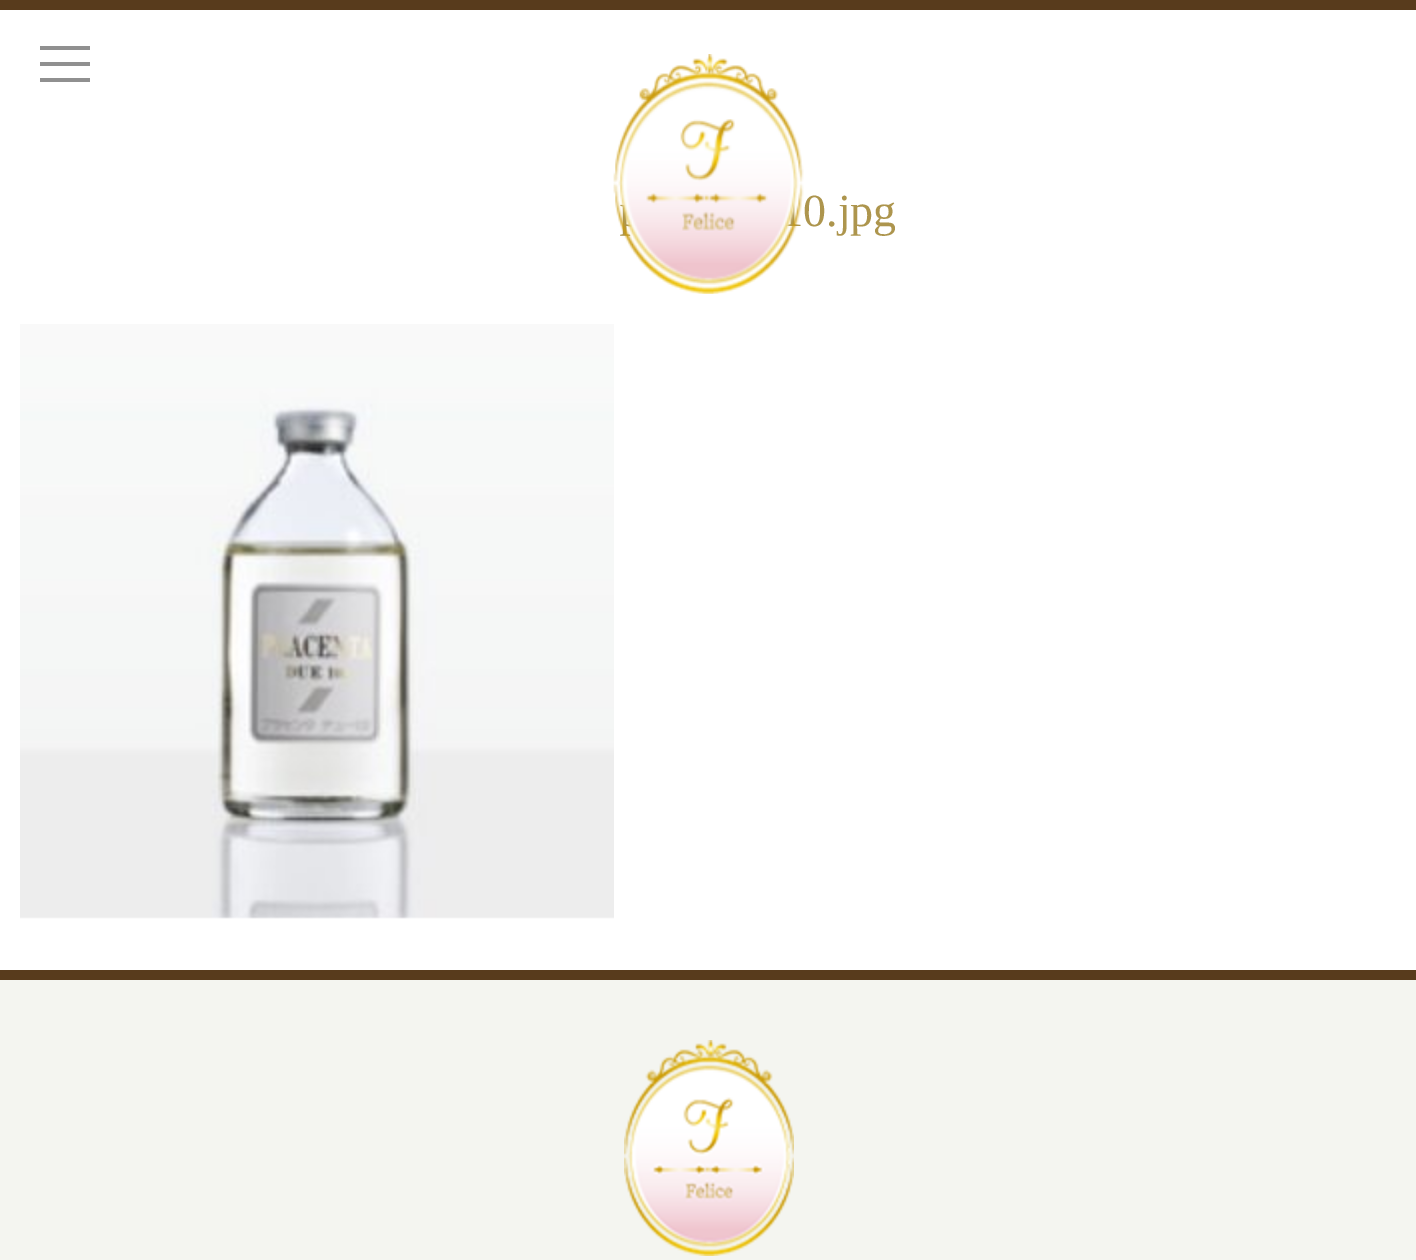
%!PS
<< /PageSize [1416 1260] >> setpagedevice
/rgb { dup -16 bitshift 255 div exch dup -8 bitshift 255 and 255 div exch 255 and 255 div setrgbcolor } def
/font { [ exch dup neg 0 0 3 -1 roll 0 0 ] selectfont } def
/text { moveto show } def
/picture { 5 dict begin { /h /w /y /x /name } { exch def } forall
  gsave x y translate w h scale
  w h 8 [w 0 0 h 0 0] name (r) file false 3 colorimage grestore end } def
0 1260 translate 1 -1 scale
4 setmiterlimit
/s1 { /LiberationSerif-Regular 46 font 16#AD954D rgb } def
16#F4F5F0 rgb
0 0 1416 1260 rectfill
16#FFFFFF rgb
0 10 1416 960 rectfill
16#583B1C rgb
0 0 1416 10 rectfill
16#909090 rgb
40 46 50 4 rectfill
40 62 50 4 rectfill
40 78 50 4 rectfill
(pic1.raw) 613 54 191 240 picture
s1
(0.jpg) 803 226 text
(pic2.raw) 20 324 594 595 picture
16#583B1C rgb
0 970 1416 10 rectfill
(pic3.raw) 624 1040 170 216 picture
showpage
